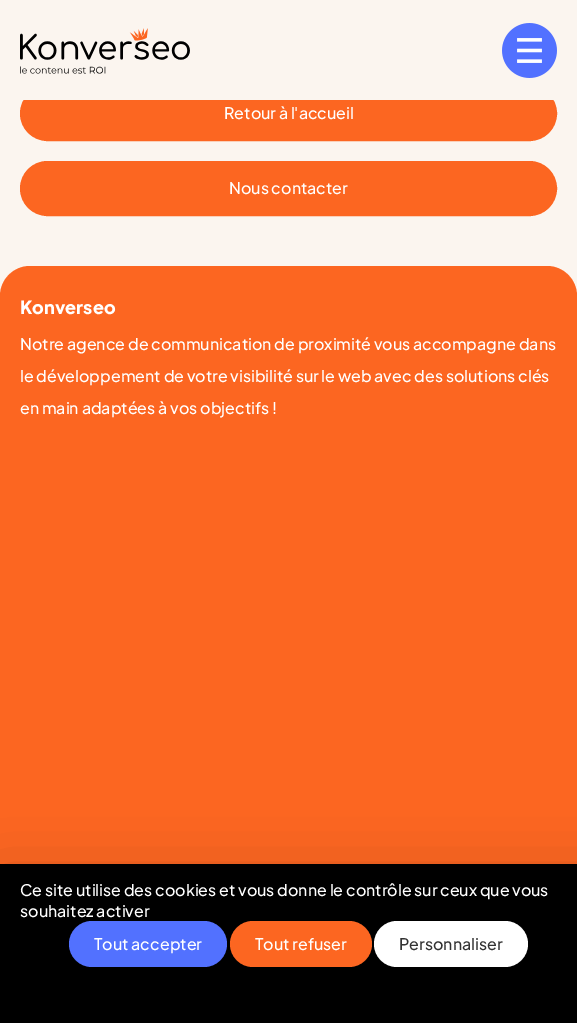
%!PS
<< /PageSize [577 1023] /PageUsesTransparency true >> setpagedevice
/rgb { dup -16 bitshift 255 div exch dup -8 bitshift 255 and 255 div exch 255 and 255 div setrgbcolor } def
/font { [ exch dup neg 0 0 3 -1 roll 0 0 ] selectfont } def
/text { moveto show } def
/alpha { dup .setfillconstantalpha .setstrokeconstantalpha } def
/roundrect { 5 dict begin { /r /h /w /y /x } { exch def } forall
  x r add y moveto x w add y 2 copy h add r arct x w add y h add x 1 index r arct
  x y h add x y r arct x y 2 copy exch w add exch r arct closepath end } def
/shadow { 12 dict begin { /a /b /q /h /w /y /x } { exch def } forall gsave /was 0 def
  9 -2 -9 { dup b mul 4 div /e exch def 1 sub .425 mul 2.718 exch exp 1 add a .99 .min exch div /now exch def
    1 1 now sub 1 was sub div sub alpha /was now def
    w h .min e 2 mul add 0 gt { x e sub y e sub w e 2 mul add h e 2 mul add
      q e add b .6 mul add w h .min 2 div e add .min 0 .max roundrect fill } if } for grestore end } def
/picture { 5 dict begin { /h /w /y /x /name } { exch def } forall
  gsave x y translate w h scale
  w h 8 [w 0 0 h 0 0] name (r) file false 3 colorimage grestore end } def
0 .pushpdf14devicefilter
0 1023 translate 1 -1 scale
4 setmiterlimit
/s1 { /PlusJakartaSans-Medium 16 font 16#FFFFFF rgb } def
/s2 { /PlusJakartaSans-ExtraBold 18 font 16#FFFFFF rgb } def
/s3 { /PlusJakartaSans-Medium 16 font 16#333333 rgb } def
16#FBF5EF rgb
0 0 577 1023 rectfill
16#FC6621 rgb
21 87 535 53 26.5 roundrect gsave fill grestore
2 setlinewidth
stroke
16#FBF5EF rgb
23 86 531 14 rectfill
(pic1.raw) 20 28 170 46 picture
(pic2.raw) 502 23 55 55 picture
s1
(Retour à l'accueil) 224 119 text
16#FC6621 rgb
21 162 535 53 26.5 roundrect gsave fill grestore
stroke
s1
(Nous contacter) 229 194 text
16#FC6621 rgb
30 266 moveto 547 266 lineto 563.5 266 577 279.5 577 296 curveto 577 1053 lineto 0 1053 lineto 0 296 lineto 0 279.5 13.5 266 30 266 curveto closepath fill
s2
(Konverseo) 20 314 text
s1
(Notre agence de communication de proximité vous accompagne dans) 20 350 text
(le développement de votre visibilité sur le web avec des solutions clés) 20 382 text
(en main adaptées à vos objectifs !) 20 414 text
16#000000 rgb
0 884 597 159 0 30 0.25 shadow
0 864 577 159 rectfill
s1
(Ce site utilise des cookies et vous donne le contrôle sur ceux que vous) 20 896 text
(souhaitez activer) 20 917 text
16#5271FF rgb
69 921 158 46 23 roundrect fill
s1
(Tout accepter) 94 950 text
16#FC6621 rgb
230 921 142 46 23 roundrect fill
s1
(Tout refuser) 255 950 text
374 921 154 46 23 roundrect fill
s3
(Personnaliser) 399 950 text
.poppdf14devicefilter showpage
